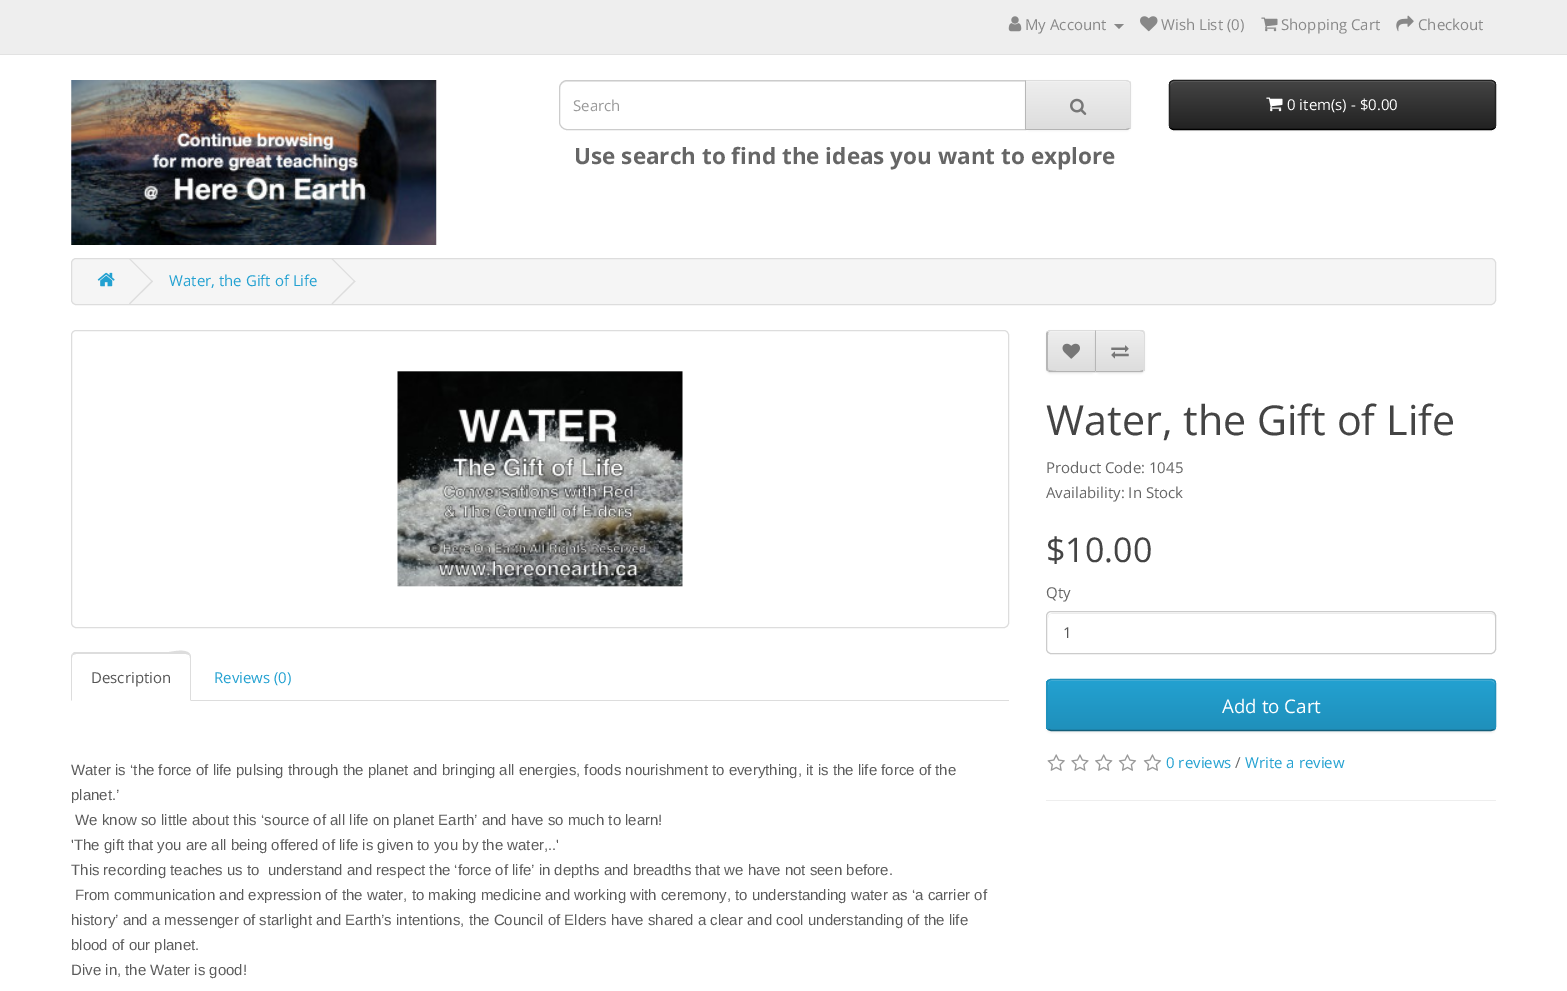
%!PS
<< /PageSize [1567 991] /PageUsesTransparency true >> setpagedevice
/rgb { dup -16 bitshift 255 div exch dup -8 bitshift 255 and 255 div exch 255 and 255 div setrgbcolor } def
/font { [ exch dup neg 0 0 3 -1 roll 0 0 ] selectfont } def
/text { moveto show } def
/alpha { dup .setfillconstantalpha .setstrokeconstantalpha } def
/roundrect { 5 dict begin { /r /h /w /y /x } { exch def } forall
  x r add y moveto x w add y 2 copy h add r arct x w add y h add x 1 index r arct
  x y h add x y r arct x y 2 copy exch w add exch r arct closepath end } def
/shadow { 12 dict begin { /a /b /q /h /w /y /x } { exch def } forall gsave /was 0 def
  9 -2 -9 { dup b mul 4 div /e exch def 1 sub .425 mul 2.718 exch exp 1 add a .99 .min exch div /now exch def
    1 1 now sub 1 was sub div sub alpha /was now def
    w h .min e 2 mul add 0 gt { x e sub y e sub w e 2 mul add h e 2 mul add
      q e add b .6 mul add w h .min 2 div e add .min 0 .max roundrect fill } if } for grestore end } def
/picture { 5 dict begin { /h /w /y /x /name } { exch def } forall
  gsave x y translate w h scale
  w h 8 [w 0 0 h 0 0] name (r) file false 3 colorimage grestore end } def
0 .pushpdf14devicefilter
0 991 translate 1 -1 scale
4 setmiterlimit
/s1 { /OpenSans-Regular 15 font 16#888888 rgb } def
/s2 { /OpenSans-Regular 15 font 16#999999 rgb } def
/s3 { /OpenSans-Bold 22.5 font 16#666666 rgb } def
/s4 { /OpenSans-Regular 15 font 16#FFFFFF rgb } def
/s5 { /OpenSans-Regular 15 font 16#23A1D1 rgb } def
/s6 { /OpenSans-Regular 41.25 font 16#444444 rgb } def
/s7 { /OpenSans-Regular 15 font 16#666666 rgb } def
/s8 { /OpenSans-Regular 34 font 16#444444 rgb } def
/s9 { /OpenSans-Regular 15 font 16#555555 rgb } def
/s10 { /OpenSans-Regular 18.75 font 16#FFFFFF rgb } def
/s11 { /LiberationSans-Regular 15 font 16#5C5C5C rgb } def
16#FFFFFF rgb
0 0 1567 991 rectfill
16#EEEEEE rgb
0 0 1567 54 rectfill
16#E2E2E2 rgb
0 54 1567 1 rectfill
(pic1.raw) 1008 16 14 16 picture
s1
(My Account) 1025 30 text
1114 24 moveto 1124 24 lineto 1119 29 lineto closepath fill
(pic2.raw) 1140 16 18 16 picture
(Wish List \(0\)) 1161 30 text
(pic3.raw) 1261 17 17 15 picture
(Shopping Cart) 1281 30 text
(pic4.raw) 1396 15 18 17 picture
(Checkout) 1418 30 text
(pic5.raw) 71 80 366 165 picture
16#ECECEC rgb
566 82 moveto 1025 82 lineto 1025 81 lineto 566 81 lineto 561 81 560 85 560 89 curveto 560 85 563 82 566 82 curveto closepath fill
16#CCCCCC rgb
567 80.5 moveto 1025.5 80.5 lineto 1025.5 129.5 lineto 567 129.5 lineto 563 129.5 559.5 126 559.5 122 curveto 559.5 88 lineto 559.5 84 563 80.5 567 80.5 curveto closepath stroke
s2
(Search) 573 111 text
16#000000 rgb
1025 81 106 50 5 1 0.05 shadow
gsave
1025 80 moveto 1126 80 lineto 1129 80 1131 82 1131 85 curveto 1131 125 lineto 1131 128 1129 130 1126 130 curveto 1025 130 lineto closepath clip newpath
gsave 1026 81 moveto 1131 81 lineto 1131 129 lineto 1026 129 lineto closepath clip newpath
<< /ShadingType 2 /ColorSpace /DeviceRGB /Coords [1078 81 1078 129] /Extend [true true] /Function << /FunctionType 2 /Domain [0 1] /C0 [0.933 0.933 0.933] /C1 [0.867 0.867 0.867] /N 1 >> >> shfill grestore
grestore
16#F1F1F1 rgb
1026 82 moveto 1126 82 lineto 1128 82 1130 84 1130 86 curveto 1130 85 lineto 1130 83 1128 81 1126 81 curveto 1026 81 lineto closepath fill
16#DDDDDD rgb
1025 80 moveto 1026 81 lineto 1126 81 lineto 1129 82 lineto 1130 82 lineto 1129 81 1128 80 1126 80 curveto closepath fill
1130 82 moveto 1131 82 1131 84 1131 85 curveto 1131 125 lineto 1131 126 1131 128 1130 128 curveto 1129 128 lineto 1130 127 1130 126 1130 125 curveto 1130 85 lineto 1130 84 1130 83 1129 82 curveto closepath fill
16#B3B3B3 rgb
1126 130 moveto 1128 130 1129 129 1130 128 curveto 1129 128 lineto 1126 129 lineto 1026 129 lineto 1025 130 lineto closepath fill
16#B7B7B7 rgb
1025 80 moveto 1025 130 lineto 1026 129 lineto 1026 81 lineto closepath fill
(pic6.raw) 1070 98 17 17 picture
s3
(Use search to find the ideas you want to explore) 574 164 text
16#000000 rgb
1169 81 327 50 5 1 0.05 shadow
gsave
1169 80 327 50 5 roundrect clip newpath
gsave 1169 81 moveto 1496 81 lineto 1496 129 lineto 1169 129 lineto closepath clip newpath
<< /ShadingType 2 /ColorSpace /DeviceRGB /Coords [1333 81 1333 129] /Extend [true true] /Function << /FunctionType 2 /Domain [0 1] /C0 [0.267 0.267 0.267] /C1 [0.133 0.133 0.133] /N 1 >> >> shfill grestore
grestore
16#696969 rgb
1174 82 moveto 1491 82 lineto 1493 82 1495 84 1495 86 curveto 1495 85 lineto 1495 83 1493 81 1491 81 curveto 1174 81 lineto 1172 81 1170 83 1170 85 curveto 1170 86 lineto 1170 84 1172 82 1174 82 curveto closepath fill
16#000000 rgb
1.2 setlinewidth
1494.5 128 moveto 1493.5 129 1492.5 129.5 1491 129.5 curveto 1174 129.5 lineto 1172.5 129.5 1171.5 129 1170.5 128 curveto stroke
16#222222 rgb
1170.5 128 moveto 1170 127.5 1169.5 126 1169.5 125 curveto 1169.5 85 lineto 1169.5 84 1170 82.5 1170.5 82 curveto 1171.5 81 1172.5 80.5 1174 80.5 curveto 1491 80.5 lineto 1492.5 80.5 1493.5 81 1494.5 82 curveto 1495 82.5 1495.5 84 1495.5 85 curveto 1495.5 125 lineto 1495.5 126 1495 127.5 1494.5 128 curveto stroke
(pic7.raw) 1266 97 17 15 picture
s4
(0 item\(s\) - $0.00) 1287 110 text
16#F5F5F5 rgb
71.5 258.5 1424 46 4.5 roundrect gsave fill grestore
16#DDDDDD rgb
1 setlinewidth
stroke
(pic8.raw) 97 272 18 15 picture
129 259 moveto 130 258.5 lineto 153 281.5 lineto 152 282 lineto closepath fill
129 303.5 moveto 152 280.5 lineto 153 281.5 lineto 130 304 lineto closepath fill
s5
(Water, the Gift of Life) 169 286 text
16#DDDDDD rgb
331.5 259 moveto 332.5 258.5 lineto 355.5 281.5 lineto 354.5 282 lineto closepath fill
331.5 303.5 moveto 354.5 280.5 lineto 355.5 281.5 lineto 332.5 304 lineto closepath fill
16#000000 rgb
1046 331 50 43 5 1 0.05 shadow
16#E7E7E7 rgb
1051 330 moveto 1096 330 lineto 1096 373 lineto 1051 373 lineto 1048 373 1046 371 1046 368 curveto 1046 335 lineto 1046 332 1048 330 1051 330 curveto closepath fill
gsave
1051 330 moveto 1096 330 lineto 1096 373 lineto 1051 373 lineto 1048 373 1046 371 1046 368 curveto 1046 335 lineto 1046 332 1048 330 1051 330 curveto closepath clip newpath
gsave 1046 331 moveto 1095 331 lineto 1095 371 lineto 1046 371 lineto closepath clip newpath
<< /ShadingType 2 /ColorSpace /DeviceRGB /Coords [1071 331 1071 371] /Extend [true true] /Function << /FunctionType 2 /Domain [0 1] /C0 [0.933 0.933 0.933] /C1 [0.867 0.867 0.867] /N 1 >> >> shfill grestore
grestore
16#F1F1F1 rgb
1051 332 moveto 1095 332 lineto 1095 331 lineto 1052 331 lineto 1050 331 1048 333 1048 335 curveto 1048 336 lineto 1048 334 1049 332 1051 332 curveto closepath fill
16#DDDDDD rgb
1051 330 moveto 1050 330 1048 330 1048 331 curveto 1049 332 lineto 1050 331 lineto 1095 331 lineto 1096 330 lineto closepath fill
16#B3B3B3 rgb
1096 372 moveto 1051 372 lineto 1050 372 1049 372 1048 371 curveto 1049 370 lineto 1050 372 1089 371 1095 371 curveto closepath fill
16#B7B7B7 rgb
1046 333.5 moveto 1047.5 331.5 lineto 1048.5 332.5 lineto 1048 333 1048 334 1048 335 curveto 1048 368 lineto 1048 369 1048 369.5 1048.5 370 curveto 1047.5 371 lineto 1046 369 lineto closepath fill
(pic9.raw) 1062 343 18 16 picture
16#000000 rgb
1095 331 50 43 5 1 0.05 shadow
16#E7E7E7 rgb
1095 330 moveto 1140 330 lineto 1143 330 1145 332 1145 335 curveto 1145 368 lineto 1145 371 1143 373 1140 373 curveto 1095 373 lineto closepath fill
gsave
1095 330 moveto 1140 330 lineto 1143 330 1145 332 1145 335 curveto 1145 368 lineto 1145 371 1143 373 1140 373 curveto 1095 373 lineto closepath clip newpath
gsave 1096 331 moveto 1145 331 lineto 1145 371 lineto 1096 371 lineto closepath clip newpath
<< /ShadingType 2 /ColorSpace /DeviceRGB /Coords [1120 331 1120 371] /Extend [true true] /Function << /FunctionType 2 /Domain [0 1] /C0 [0.933 0.933 0.933] /C1 [0.867 0.867 0.867] /N 1 >> >> shfill grestore
grestore
16#F1F1F1 rgb
1096 332 moveto 1140 332 lineto 1142 332 1144 334 1144 336 curveto 1144 335 lineto 1144 333 1142 331 1140 331 curveto 1096 331 lineto closepath fill
16#DDDDDD rgb
1095 330 moveto 1096 331 lineto 1140 331 lineto 1141 331 1142 332 1143 332 curveto 1144 331 lineto 1143 330 1142 330 1140 330 curveto closepath fill
1145 368 moveto 1145 335 lineto 1145 333.5 1144.5 332 1143.5 331.5 curveto 1143 332 lineto 1143.5 333 1144 334 1144 335 curveto 1144 368 lineto 1144 369 1143.5 370 1143 370 curveto 1143.5 371 lineto 1144.5 370 1145 369 1145 368 curveto closepath fill
16#B3B3B3 rgb
1143 371 moveto 1143 372 1141 372 1140 372 curveto 1096 372 lineto 1096 371 lineto 1140 371 lineto 1143 370 lineto closepath fill
16#B7B7B7 rgb
1096 331 moveto 1095 330 lineto 1095 372 lineto 1096 371 lineto closepath fill
(pic10.raw) 1111 345 18 14 picture
s6
(Water, the Gift of Life) 1046 435 text
s7
(Product Code: 1045) 1046 473 text
(Availability: In Stock) 1046 498 text
s8
($10.00) 1046 562 text
s7
(Qty) 1046 598 text
16#ECECEC rgb
1051 614 moveto 1491 614 lineto 1493 614 1495 615 1495 618 curveto 1495 615 1494 613 1491 613 curveto 1052 613 lineto 1050 614 lineto 1049 615 lineto 1048 618 lineto 1048 615 1049 614 1051 614 curveto closepath fill
16#CCCCCC rgb
1046.5 611.5 449 42 4.5 roundrect stroke
s9
(1) 1063 638 text
16#000000 rgb
1046 680 450 53 5 1 0.05 shadow
gsave
1046 679 450 52 5 roundrect clip newpath
gsave 1046 680 moveto 1496 680 lineto 1496 730 lineto 1046 730 lineto closepath clip newpath
<< /ShadingType 2 /ColorSpace /DeviceRGB /Coords [1271 680 1271 730] /Extend [true true] /Function << /FunctionType 2 /Domain [0 1] /C0 [0.137 0.631 0.82] /C1 [0.122 0.565 0.733] /N 1 >> >> shfill grestore
grestore
16#4FB4DA rgb
1051 681 moveto 1491 681 lineto 1493 681 1495 683 1495 685 curveto 1495 682 1494 680 1491 680 curveto 1052 680 lineto 1050 681 lineto 1049 682 lineto 1048 685 lineto 1048 683 1049 681 1051 681 curveto closepath fill
16#145E7A rgb
1.2 setlinewidth
1494.5 729.5 moveto 1491 730.5 lineto 1051 730.5 lineto 1048 729.5 lineto stroke
16#1F90BB rgb
1048 729.5 moveto 1047.5 728.5 1047 727.5 1047 726 curveto 1047 684 lineto 1047 682.5 1047.5 681.5 1048 680.5 curveto 1049 680 1050 679.5 1051 679.5 curveto 1491 679.5 lineto 1492.5 679.5 1493.5 680 1494.5 680.5 curveto 1495 681.5 1495.5 682.5 1495.5 684 curveto 1495.5 726 lineto 1495.5 727.5 1495 728.5 1494.5 729.5 curveto stroke
s10
(Add to Cart) 1222 713 text
(pic11.raw) 1047 754 18 17 picture
(pic12.raw) 1071 754 18 17 picture
(pic13.raw) 1095 754 18 17 picture
(pic14.raw) 1118 754 19 17 picture
(pic14.raw) 1143 754 19 17 picture
s5
(0 reviews) 1166 768 text
s7
(/) 1235 768 text
s5
(Write a review) 1245 768 text
16#EEEEEE rgb
1046 800 450 1 rectfill
16#DDDDDD rgb
1 setlinewidth
71.5 330.5 937 297 4.5 roundrect stroke
(pic15.raw) 397 371 286 216 picture
191 700 818 1 rectfill
76 654 moveto 73 655 lineto 72 654 lineto 74 652 lineto 169 652 lineto 171 652 186 648 190 654 curveto 189 655 lineto 186 654 lineto closepath fill
190 654 moveto 191 655 191 657 191 658 curveto 191 701 lineto 190 700 lineto 190 658 lineto 190 657 190 656 189 655 curveto closepath fill
71 656 moveto 72 654 lineto 73 655 lineto 73 655 72 656 72 658 curveto 72 700 lineto 71 701 lineto closepath fill
s9
(Description) 91 683 text
s5
(Reviews \(0\)) 214 683 text
s11
(Water is ‘the force of life pulsing through the planet and bringing all energies, foods nourishment to everything, it is the life force of the) 71 775 text
(planet.’) 71 800 text
(We know so little about this ‘source of all life on planet Earth’ and have so much to learn!) 75 825 text
('The gift that you are all being offered of life is given to you by the water,..') 71 850 text
(This recording teaches us to  understand and respect the ‘force of life’ in depths and breadths that we have not seen before.) 71 875 text
(From communication and expression of the water, to making medicine and working with ceremony, to understanding water as ‘a carrier of) 75 900 text
(history’ and a messenger of starlight and Earth’s intentions, the Council of Elders have shared a clear and cool understanding of the life) 71 925 text
(blood of our planet.) 71 950 text
(Dive in, the Water is good!) 71 975 text
.poppdf14devicefilter showpage
